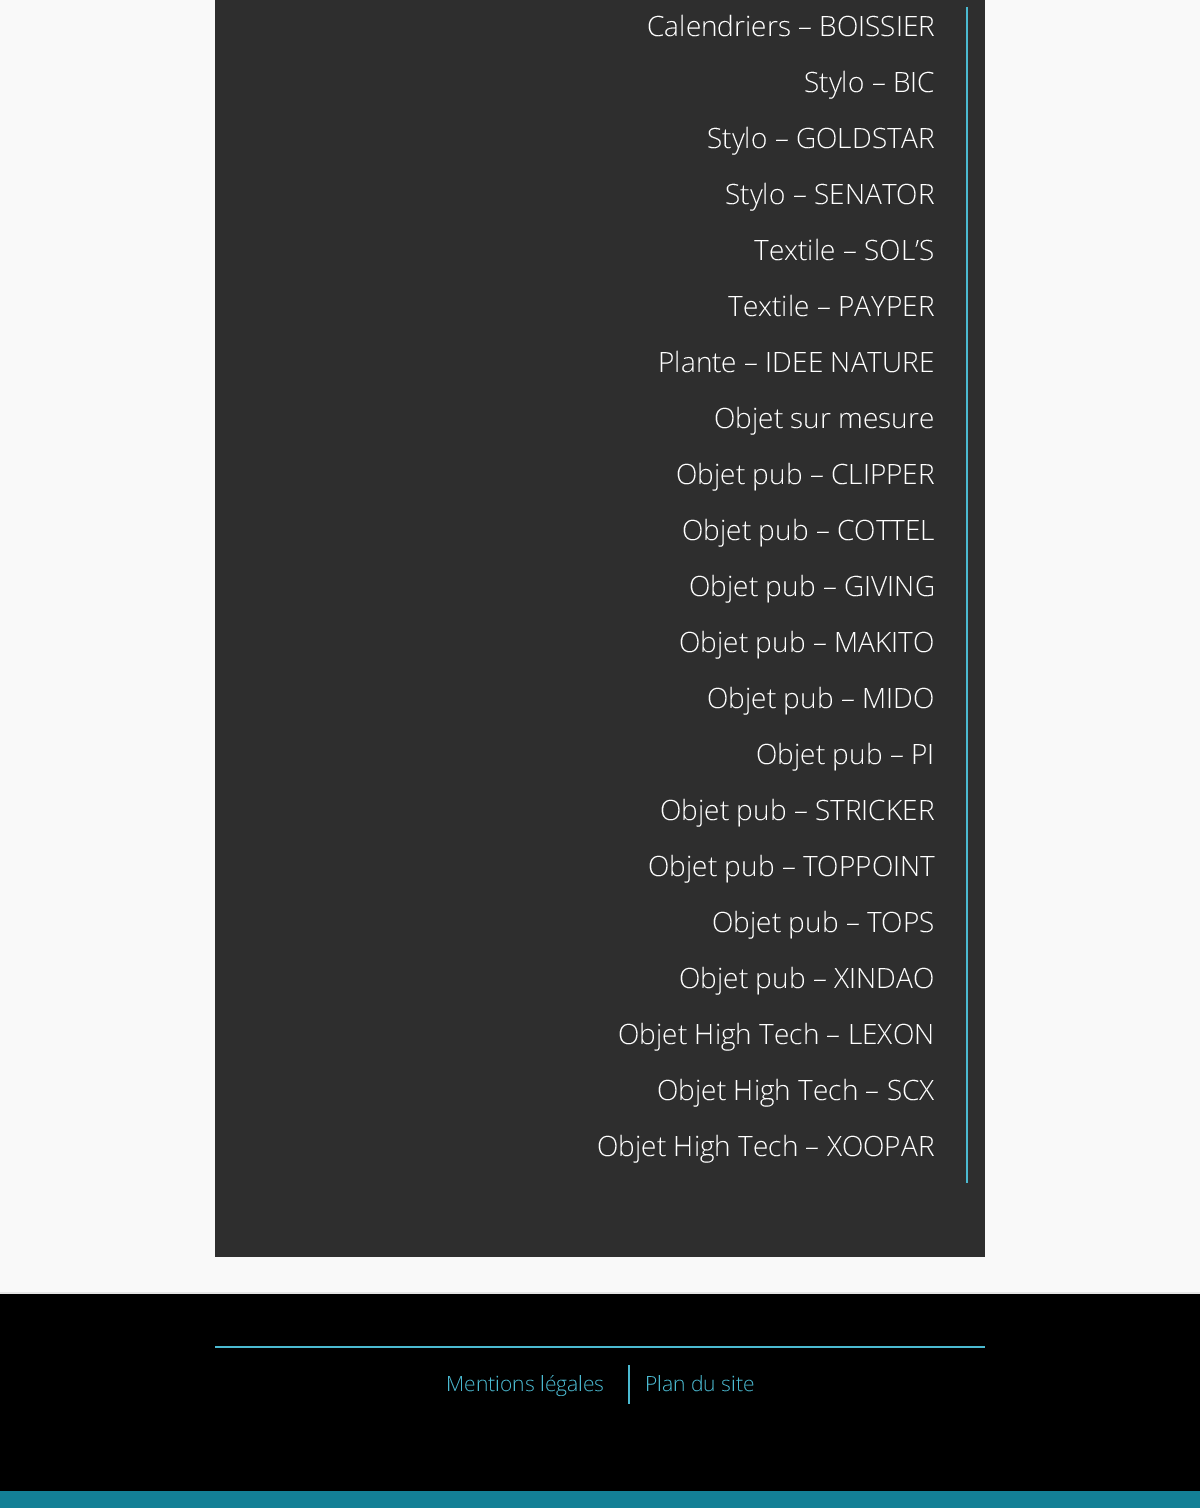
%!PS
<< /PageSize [1200 1508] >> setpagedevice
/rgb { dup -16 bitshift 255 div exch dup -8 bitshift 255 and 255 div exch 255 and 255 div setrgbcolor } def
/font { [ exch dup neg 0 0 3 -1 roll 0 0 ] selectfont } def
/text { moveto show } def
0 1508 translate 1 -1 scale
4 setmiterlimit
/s1 { /OpenSans-Light 28 font 16#FFFFFF rgb } def
/s2 { /OpenSans-Light 21 font 16#4BBAD1 rgb } def
16#F9F9F9 rgb
0 0 1200 1508 rectfill
16#E6E6E6 rgb
0 1292 1200 2 rectfill
16#2E2E2E rgb
215 0 770 1257 rectfill
16#4BBAD1 rgb
966 7 2 1176 rectfill
s1
(Calendriers – BOISSIER) 647 36 text
(Stylo – BIC) 804 92 text
(Stylo – GOLDSTAR) 707 148 text
(Stylo – SENATOR) 725 204 text
(Textile – SOL’S) 754 260 text
(Textile – PAYPER) 728 316 text
(Plante – IDEE NATURE) 658 372 text
(Objet sur mesure) 714 428 text
(Objet pub – CLIPPER) 676 484 text
(Objet pub – COTTEL) 682 540 text
(Objet pub – GIVING) 689 596 text
(Objet pub – MAKITO) 679 652 text
(Objet pub – MIDO) 707 708 text
(Objet pub – PI) 756 764 text
(Objet pub – STRICKER) 660 820 text
(Objet pub – TOPPOINT) 648 876 text
(Objet pub – TOPS) 712 932 text
(Objet pub – XINDAO) 679 988 text
(Objet High Tech – LEXON) 618 1044 text
(Objet High Tech – SCX) 657 1100 text
(Objet High Tech – XOOPAR) 597 1156 text
16#000000 rgb
0 1294 1200 197 rectfill
16#138096 rgb
0 1491 1200 17 rectfill
16#4BBAD1 rgb
215 1346 770 2 rectfill
s2
(Mentions légales) 446 1391 text
628 1365 2 39 rectfill
(Plan du site) 645 1391 text
showpage
